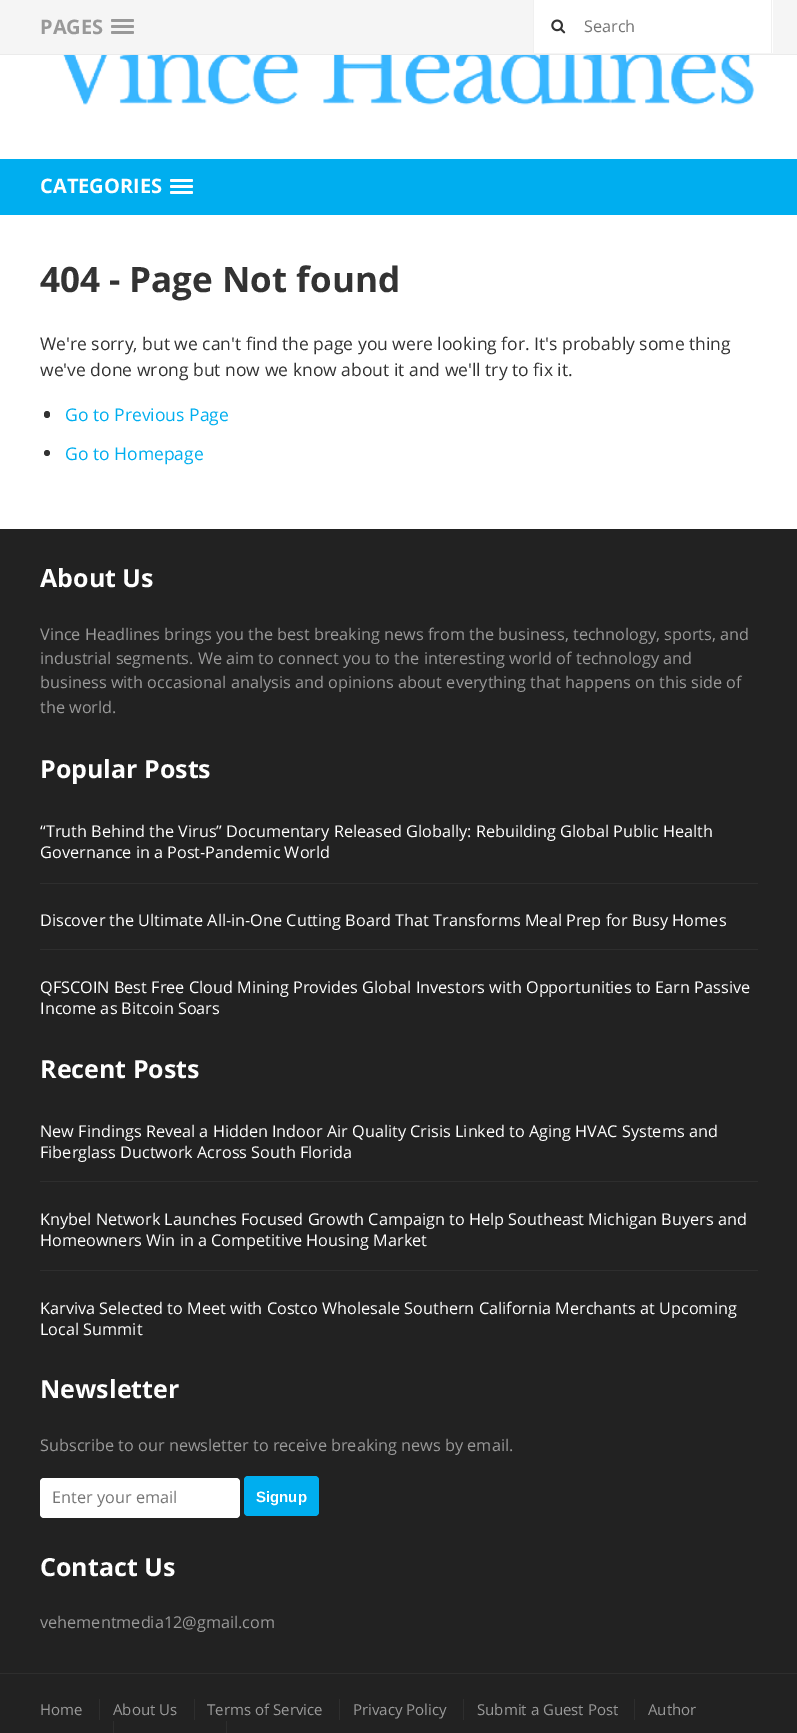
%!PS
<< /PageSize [797 1733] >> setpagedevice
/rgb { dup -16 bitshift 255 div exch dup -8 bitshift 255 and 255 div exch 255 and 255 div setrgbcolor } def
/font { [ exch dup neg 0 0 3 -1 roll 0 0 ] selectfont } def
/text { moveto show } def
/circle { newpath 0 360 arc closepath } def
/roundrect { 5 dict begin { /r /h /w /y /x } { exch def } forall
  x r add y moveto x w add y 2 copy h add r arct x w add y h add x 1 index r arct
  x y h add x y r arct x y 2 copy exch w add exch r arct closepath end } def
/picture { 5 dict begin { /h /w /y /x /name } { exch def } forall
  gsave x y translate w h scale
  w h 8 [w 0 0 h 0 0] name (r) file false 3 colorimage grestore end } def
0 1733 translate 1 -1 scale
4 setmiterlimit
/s1 { /OpenSans-Bold 20 font 16#999999 rgb } def
/s2 { /OpenSans-Regular 16.25 font 16#757575 rgb } def
/s3 { /OpenSans-Bold 20 font 16#FFFFFF rgb } def
/s4 { /OpenSans-Bold 35 font 16#333333 rgb } def
/s5 { /OpenSans-Regular 17.5 font 16#333333 rgb } def
/s6 { /OpenSans-Regular 17.5 font 16#00AEEF rgb } def
/s7 { /OpenSans-Bold 25 font 16#FFFFFF rgb } def
/s8 { /OpenSans-Regular 16.25 font 16#999999 rgb } def
/s9 { /OpenSans-Regular 16.25 font 16#FFFFFF rgb } def
/s10 { /LiberationSans-Bold 15 font 16#FFFFFF rgb } def
/s11 { /OpenSans-Regular 15 font 16#999999 rgb } def
16#FFFFFF rgb
0 0 797 1733 rectfill
16#EBEBEB rgb
0 54 797 1 rectfill
16#F5F5F5 rgb
0 0 797 54 rectfill
s1
(PAGES) 40 34 text
111 19 23 3 1.5 roundrect fill
111 25 23 3 1.5 roundrect fill
111 31 23 3 1.5 roundrect fill
16#FFFFFF rgb
534 0 239 53 rectfill
(pic1.raw) 551 19 15 15 picture
16#F0F0F0 rgb
771 0 1 53 rectfill
533 0 1 53 rectfill
s2
(Search) 584 32 text
(pic2.raw) 62 55 693 50 picture
16#00AEEF rgb
0 159 797 56 rectfill
s3
(CATEGORIES) 40 193 text
170 179 23 3 1.5 roundrect fill
170 185 23 3 1.5 roundrect fill
170 191 23 3 1.5 roundrect fill
s4
(404 - Page Not found) 40 292 text
s5
(We're sorry, but we can't find the page you were looking for. It's probably some thing) 40 350 text
(we've done wrong but now we know about it and we'll try to fix it.) 40 376 text
44 411 6 7 3 roundrect fill
s6
(Go to Previous Page) 65 421 text
16#333333 rgb
47 453 3 circle fill
s6
(Go to Homepage) 65 460 text
16#222222 rgb
0 529 797 1204 rectfill
s7
(About Us) 40 587 text
s8
(Vince Headlines brings you the best breaking news from the business, technology, sports, and) 40 640 text
(industrial segments. We aim to connect you to the interesting world of technology and) 40 664 text
(business with occasional analysis and opinions about everything that happens on this side of) 40 688 text
(the world.) 40 713 text
s7
(Popular Posts) 40 778 text
16#2E2E2E rgb
40 883 718 1 rectfill
s9
(“Truth Behind the Virus” Documentary Released Globally: Rebuilding Global Public Health) 40 837 text
(Governance in a Post-Pandemic World) 40 858 text
16#2E2E2E rgb
40 949 718 1 rectfill
s9
(Discover the Ultimate All-in-One Cutting Board That Transforms Meal Prep for Busy Homes) 40 926 text
(QFSCOIN Best Free Cloud Mining Provides Global Investors with Opportunities to Earn Passive) 40 993 text
(Income as Bitcoin Soars) 40 1014 text
s7
(Recent Posts) 40 1078 text
16#2E2E2E rgb
40 1181 718 1 rectfill
s9
(New Findings Reveal a Hidden Indoor Air Quality Crisis Linked to Aging HVAC Systems and) 40 1137 text
(Fiberglass Ductwork Across South Florida) 40 1158 text
16#2E2E2E rgb
40 1270 718 1 rectfill
s9
(Knybel Network Launches Focused Growth Campaign to Help Southeast Michigan Buyers and) 40 1225 text
(Homeowners Win in a Competitive Housing Market) 40 1246 text
(Karviva Selected to Meet with Costco Wholesale Southern California Merchants at Upcoming) 40 1314 text
(Local Summit) 40 1335 text
s7
(Newsletter) 40 1398 text
s8
(Subscribe to our newsletter to receive breaking news by email.) 40 1451 text
16#FFFFFF rgb
40 1478 200 40 4 roundrect fill
s2
(Enter your email) 52 1503 text
16#00AEEF rgb
244 1476 75 40 4 roundrect fill
s10
(Signup) 256 1502 text
s7
(Contact Us) 40 1576 text
s8
(vehementmedia12@gmail.com) 40 1628 text
16#2E2E2E rgb
0 1673 797 1 rectfill
s11
(Home) 40 1715 text
(About Us) 113 1715 text
16#2E2E2E rgb
99 1699 1 21 rectfill
s11
(Terms of Service) 207 1715 text
16#2E2E2E rgb
194 1699 1 21 rectfill
s11
(Privacy Policy) 353 1715 text
16#2E2E2E rgb
339 1699 1 21 rectfill
s11
(Submit a Guest Post) 477 1715 text
16#2E2E2E rgb
463 1699 1 21 rectfill
s11
(Author) 648 1715 text
16#2E2E2E rgb
634 1699 1 21 rectfill
113 1721 1 12 rectfill
226 1721 1 12 rectfill
showpage
